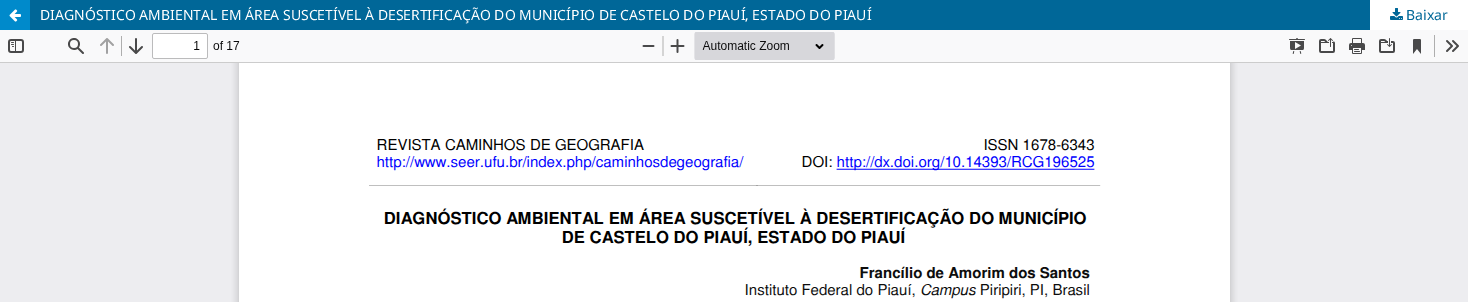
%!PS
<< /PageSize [1468 302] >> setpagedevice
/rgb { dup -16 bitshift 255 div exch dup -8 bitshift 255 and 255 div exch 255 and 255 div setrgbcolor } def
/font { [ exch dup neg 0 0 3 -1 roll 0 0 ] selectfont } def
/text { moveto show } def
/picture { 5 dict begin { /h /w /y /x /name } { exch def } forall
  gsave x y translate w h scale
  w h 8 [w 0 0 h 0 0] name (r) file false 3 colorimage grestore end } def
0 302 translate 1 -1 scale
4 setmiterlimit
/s1 { /NotoSans-Regular 14 font 16#FFFFFF rgb } def
/s2 { /NotoSans-Regular 14 font 16#006798 rgb } def
16#FFFFFF rgb
0 0 1468 302 rectfill
16#006798 rgb
30 0 1340 30 rectfill
16#008ACB rgb
0 0 30 30 rectfill
(pic1.raw) 9 9 12 13 picture
s1
(DIAGNÓSTICO AMBIENTAL EM ÁREA SUSCETÍVEL À DESERTIFICAÇÃO DO MUNICÍPIO DE CASTELO DO PIAUÍ, ESTADO DO PIAUÍ) 40 20 text
(pic2.raw) 1390 8 13 12 picture
s2
(Baixar) 1406 20 text
(pic3.raw) 0 30 1468 272 picture
showpage
